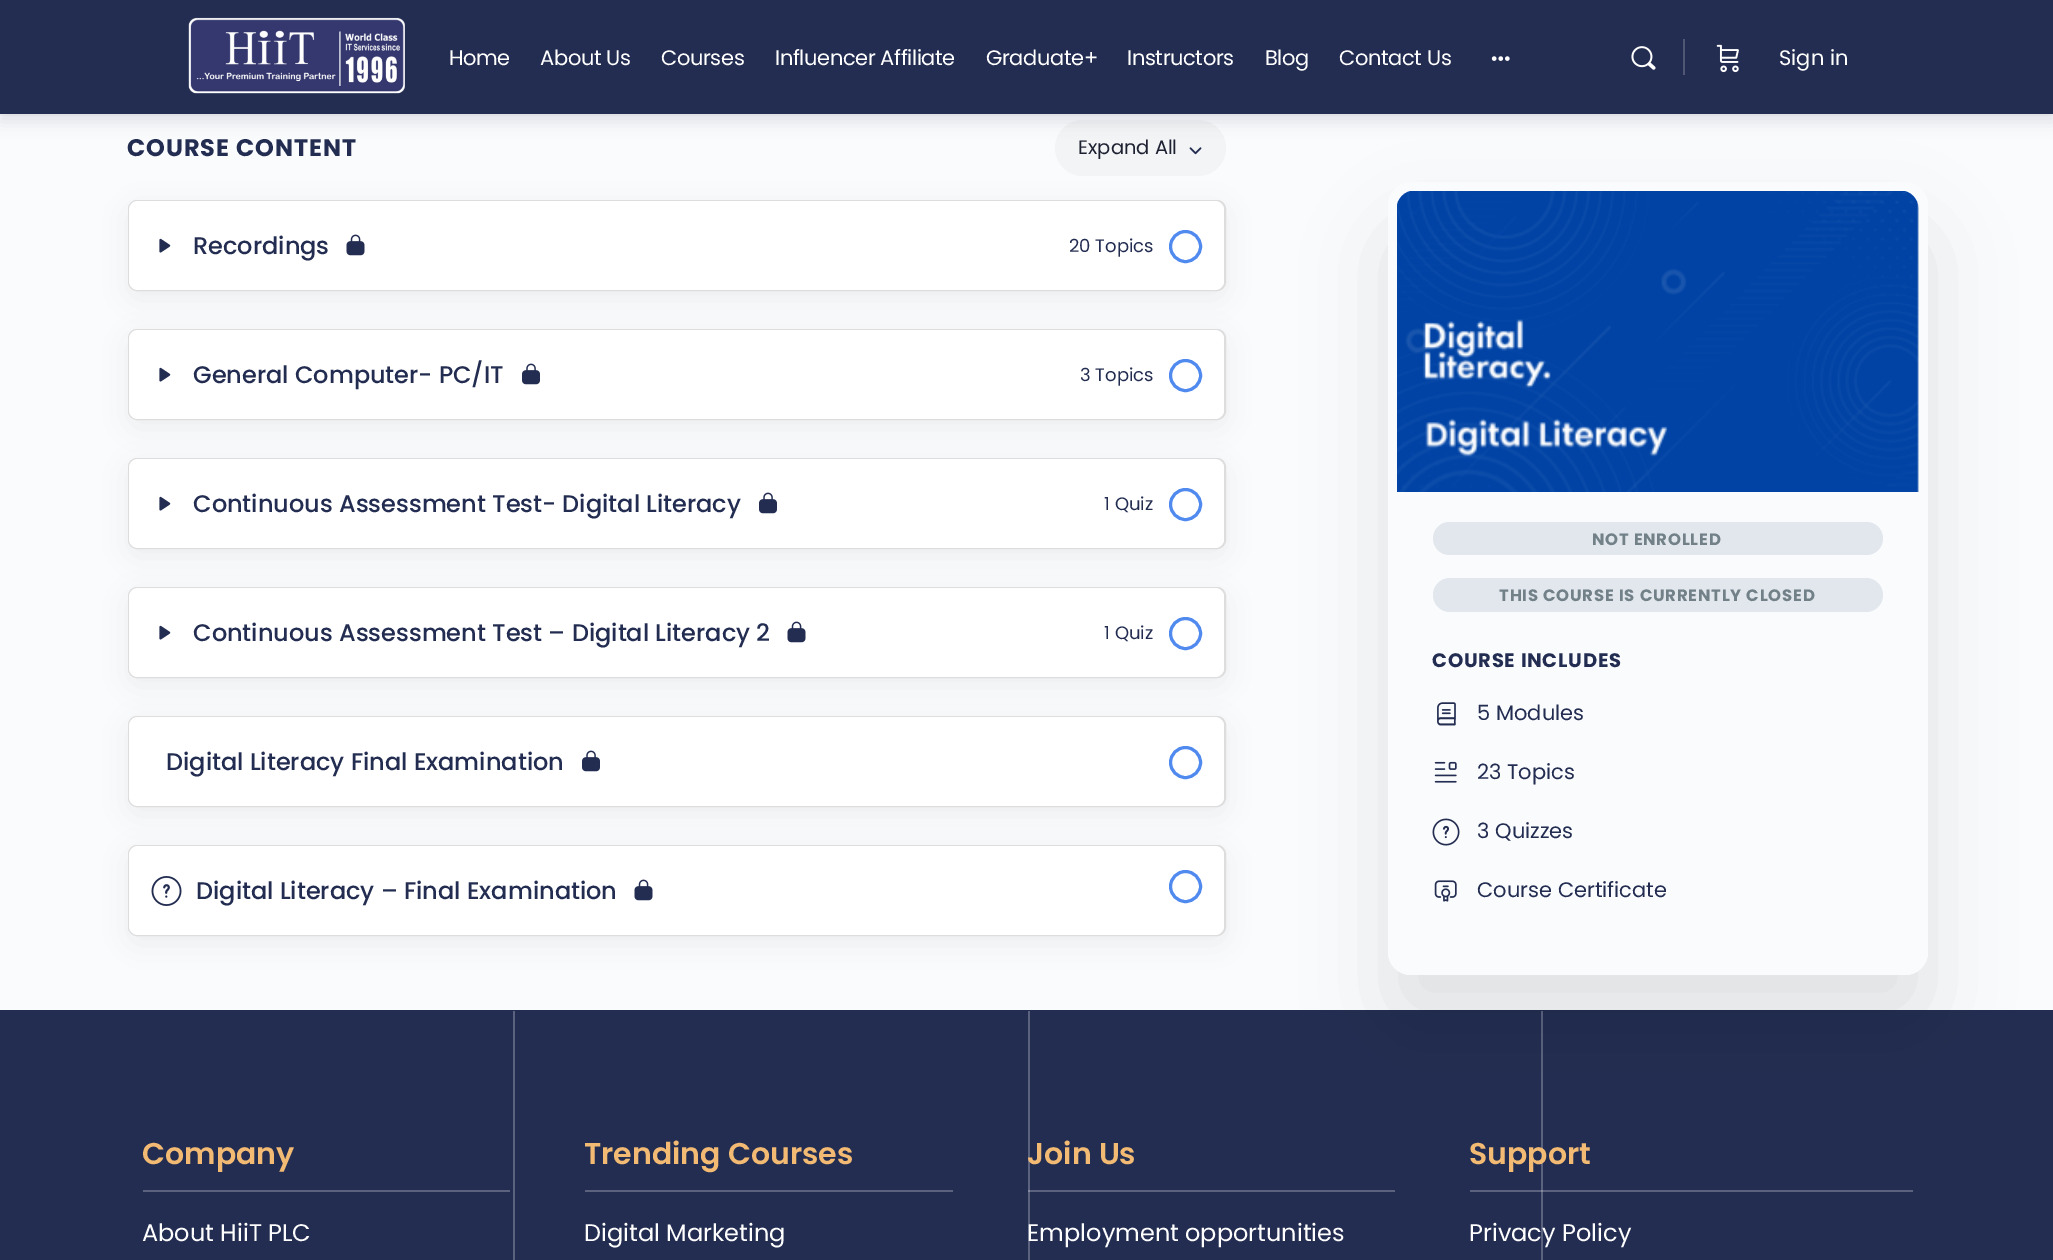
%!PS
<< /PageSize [2053 1260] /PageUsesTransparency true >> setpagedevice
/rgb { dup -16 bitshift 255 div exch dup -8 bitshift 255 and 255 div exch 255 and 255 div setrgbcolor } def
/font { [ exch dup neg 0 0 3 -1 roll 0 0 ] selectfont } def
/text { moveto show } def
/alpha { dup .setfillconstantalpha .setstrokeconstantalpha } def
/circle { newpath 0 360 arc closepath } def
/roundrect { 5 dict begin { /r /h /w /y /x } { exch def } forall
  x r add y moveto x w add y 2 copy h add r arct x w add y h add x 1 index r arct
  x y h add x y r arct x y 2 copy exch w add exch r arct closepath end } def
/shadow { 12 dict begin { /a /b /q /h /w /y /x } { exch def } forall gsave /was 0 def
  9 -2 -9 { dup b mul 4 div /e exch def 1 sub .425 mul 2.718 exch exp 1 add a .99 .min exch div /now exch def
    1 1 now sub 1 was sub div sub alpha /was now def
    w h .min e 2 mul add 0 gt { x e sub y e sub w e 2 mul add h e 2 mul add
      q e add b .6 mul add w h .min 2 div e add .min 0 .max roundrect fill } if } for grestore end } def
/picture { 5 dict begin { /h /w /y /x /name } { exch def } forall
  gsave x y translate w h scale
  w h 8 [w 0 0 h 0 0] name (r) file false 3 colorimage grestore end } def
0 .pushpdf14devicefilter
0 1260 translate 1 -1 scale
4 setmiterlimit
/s1 { /Poppins-Regular 21 font 16#FFFFFF rgb } def
/s2 { /Poppins-Regular 19.5 font 16#1E2132 rgb } def
/s3 { /Poppins-Medium 24 font 16#232D51 rgb } def
/s4 { /Poppins-Regular 18 font 16#232D51 rgb } def
/s5 { /Poppins-Regular 21 font 16#232D51 rgb } def
/s6 { /Poppins-SemiBold 30 font 16#F2BA73 rgb } def
/s7 { /Poppins-Regular 24 font 16#FFFFFF rgb } def
16#FAFBFD rgb
0 0 2053 1260 rectfill
16#F2F4F5 rgb
1055 120 171 56 28 roundrect fill
16#41476C rgb
0 8 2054 114 0 7.5 0.15 shadow
16#232D51 rgb
0 1010 2053 250 rectfill
16#5A627D rgb
1470 1190 443 2 rectfill
1541 1011 2 249 rectfill
16#000000 rgb
1388 230 540 793 23 40.5 0.1 shadow
0.05 alpha
16#8B8D9D rgb
0 114 moveto 0 116 lineto 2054 116 lineto 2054 2 lineto 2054 114 lineto closepath fill
1 alpha
16#232D51 rgb
0 0 2053 114 rectfill
(pic1.raw) 188 17 217 77 picture
/Poppins-Regular 21 font
16#FFFFFF rgb
449 65 moveto -0.4 0 (Home) ashow
540 65 moveto -0.4 0 (About Us) ashow
661 65 moveto -0.4 0 (Courses) ashow
775 65 moveto -0.4 0 (Influencer Affiliate) ashow
986 65 moveto -0.4 0 (Graduate+) ashow
1127 65 moveto -0.4 0 (Instructors) ashow
1265 65 moveto -0.4 0 (Blog) ashow
1339 65 moveto -0.4 0 (Contact Us) ashow
(pic2.raw) 1491 56 19 5 picture
(pic3.raw) 1631 46 25 24 picture
16#4F5774 rgb
1683 39 2 36 rectfill
(pic4.raw) 1716 44 23 29 picture
s1
(Sign in) 1779 65 text
/Poppins-Bold 24 font
16#232D51 rgb
127 156 moveto 0.9 0 (COURSE CONTENT) ashow
s2
(Expand All) 1078 154 text
(pic5.raw) 1189 147 13 8 picture
16#000000 rgb
128 207 1098 92 9 15 0.05 shadow
16#DDDDDD rgb
2 setlinewidth
129 201 1096 89 8 roundrect stroke
16#FFFFFF rgb
129 201 1095 89 9 roundrect fill
(pic6.raw) 159 238 12 15 picture
s3
(Recordings) 193 254 text
(pic7.raw) 346 234 19 22 picture
s4
(20 Topics) 1069 252 text
16#518AEF rgb
3 setlinewidth
1185.5 246.5 15 circle stroke
16#000000 rgb
128 336 1098 92 9 15 0.05 shadow
16#DDDDDD rgb
2 setlinewidth
129 330 1096 89 8 roundrect stroke
16#FFFFFF rgb
129 330 1095 89 9 roundrect fill
(pic6.raw) 159 367 12 15 picture
s3
(General Computer- PC/IT) 193 383 text
(pic8.raw) 522 363 18 22 picture
s4
(3 Topics) 1080 381 text
16#518AEF rgb
3 setlinewidth
1185.5 375.5 15 circle stroke
16#000000 rgb
128 465 1098 92 9 15 0.05 shadow
16#DDDDDD rgb
2 setlinewidth
129 459 1096 89 8 roundrect stroke
16#FFFFFF rgb
129 459 1095 89 9 roundrect fill
(pic6.raw) 159 496 12 15 picture
s3
(Continuous Assessment Test- Digital Literacy) 193 512 text
(pic8.raw) 759 492 18 22 picture
s4
(1 Quiz) 1104 510 text
16#518AEF rgb
3 setlinewidth
1185.5 504.5 15 circle stroke
16#000000 rgb
128 594 1098 92 9 15 0.05 shadow
16#DDDDDD rgb
2 setlinewidth
129 588 1096 89 8 roundrect stroke
16#FFFFFF rgb
129 588 1095 89 9 roundrect fill
(pic6.raw) 159 625 12 15 picture
s3
(Continuous Assessment Test – Digital Literacy 2) 193 641 text
(pic7.raw) 787 621 19 22 picture
s4
(1 Quiz) 1104 639 text
16#518AEF rgb
3 setlinewidth
1185.5 633.5 15 circle stroke
16#000000 rgb
128 723 1098 92 9 15 0.05 shadow
16#DDDDDD rgb
2 setlinewidth
129 717 1096 89 8 roundrect stroke
16#FFFFFF rgb
129 717 1095 89 9 roundrect fill
s3
(Digital Literacy Final Examination) 166 770 text
(pic8.raw) 582 750 18 22 picture
16#518AEF rgb
3 setlinewidth
1185.5 762.5 15 circle stroke
16#000000 rgb
128 852 1098 92 9 15 0.05 shadow
16#DDDDDD rgb
2 setlinewidth
129 846 1096 89 8 roundrect stroke
16#FFFFFF rgb
129 846 1095 89 9 roundrect fill
(pic9.raw) 151 876 31 30 picture
s3
(Digital Literacy – Final Examination) 196 899 text
(pic7.raw) 634 879 19 22 picture
16#518AEF rgb
3 setlinewidth
1185.5 886.5 15 circle stroke
16#FAFBFD rgb
1388 182 540 793 23 roundrect fill
16#E2E9EF rgb
1415 191 moveto 1901 191 lineto 1911 191 1919 199 1919 209 curveto 1919 492 lineto 1397 492 lineto 1397 209 lineto 1397 199 1405 191 1415 191 curveto closepath fill
(pic10.raw) 1397 191 522 301 picture
16#FAFBFD rgb
1388 492 moveto 1928 492 lineto 1928 952 lineto 1928 964.5 1917.5 975 1905 975 curveto 1411 975 lineto 1398.5 975 1388 964.5 1388 952 curveto closepath fill
16#E2E7ED rgb
1433 522 450 33 16.5 roundrect fill
/Poppins-Bold 16.5 font
16#728188 rgb
1592 545 moveto 0.75 0 (NOT ENROLLED) ashow
16#E2E7ED rgb
1433 578 450 34 17 roundrect fill
16#728188 rgb
1499 601 moveto 0.75 0 (THIS COURSE IS CURRENTLY CLOSED) ashow
/Poppins-Bold 19.5 font
16#232D51 rgb
1432 667 moveto 0.75 0 (COURSE INCLUDES) ashow
(pic11.raw) 1437 702 19 24 picture
s5
(5 Modules) 1477 720 text
(pic12.raw) 1434 761 23 22 picture
(23 Topics) 1477 779 text
(pic13.raw) 1432 818 28 28 picture
(3 Quizzes) 1477 838 text
(pic14.raw) 1434 880 23 22 picture
(Course Certificate) 1477 897 text
16#5A627D rgb
1028 1190 367 2 rectfill
513 1011 2 249 rectfill
1028 1011 2 249 rectfill
16#83899E rgb
1028 1190 2 2 rectfill
1541 1190 2 2 rectfill
s6
(Company) 142 1164 text
16#5A627D rgb
143 1190 367 2 rectfill
s7
(About HiiT PLC) 142 1241 text
s6
(Trending Courses) 584 1164 text
16#5A627D rgb
585 1190 368 2 rectfill
s7
(Digital Marketing) 584 1241 text
s6
(Join Us) 1027 1164 text
s7
(Employment opportunities) 1027 1241 text
s6
(Support) 1469 1164 text
s7
(Privacy Policy) 1469 1241 text
.poppdf14devicefilter showpage
